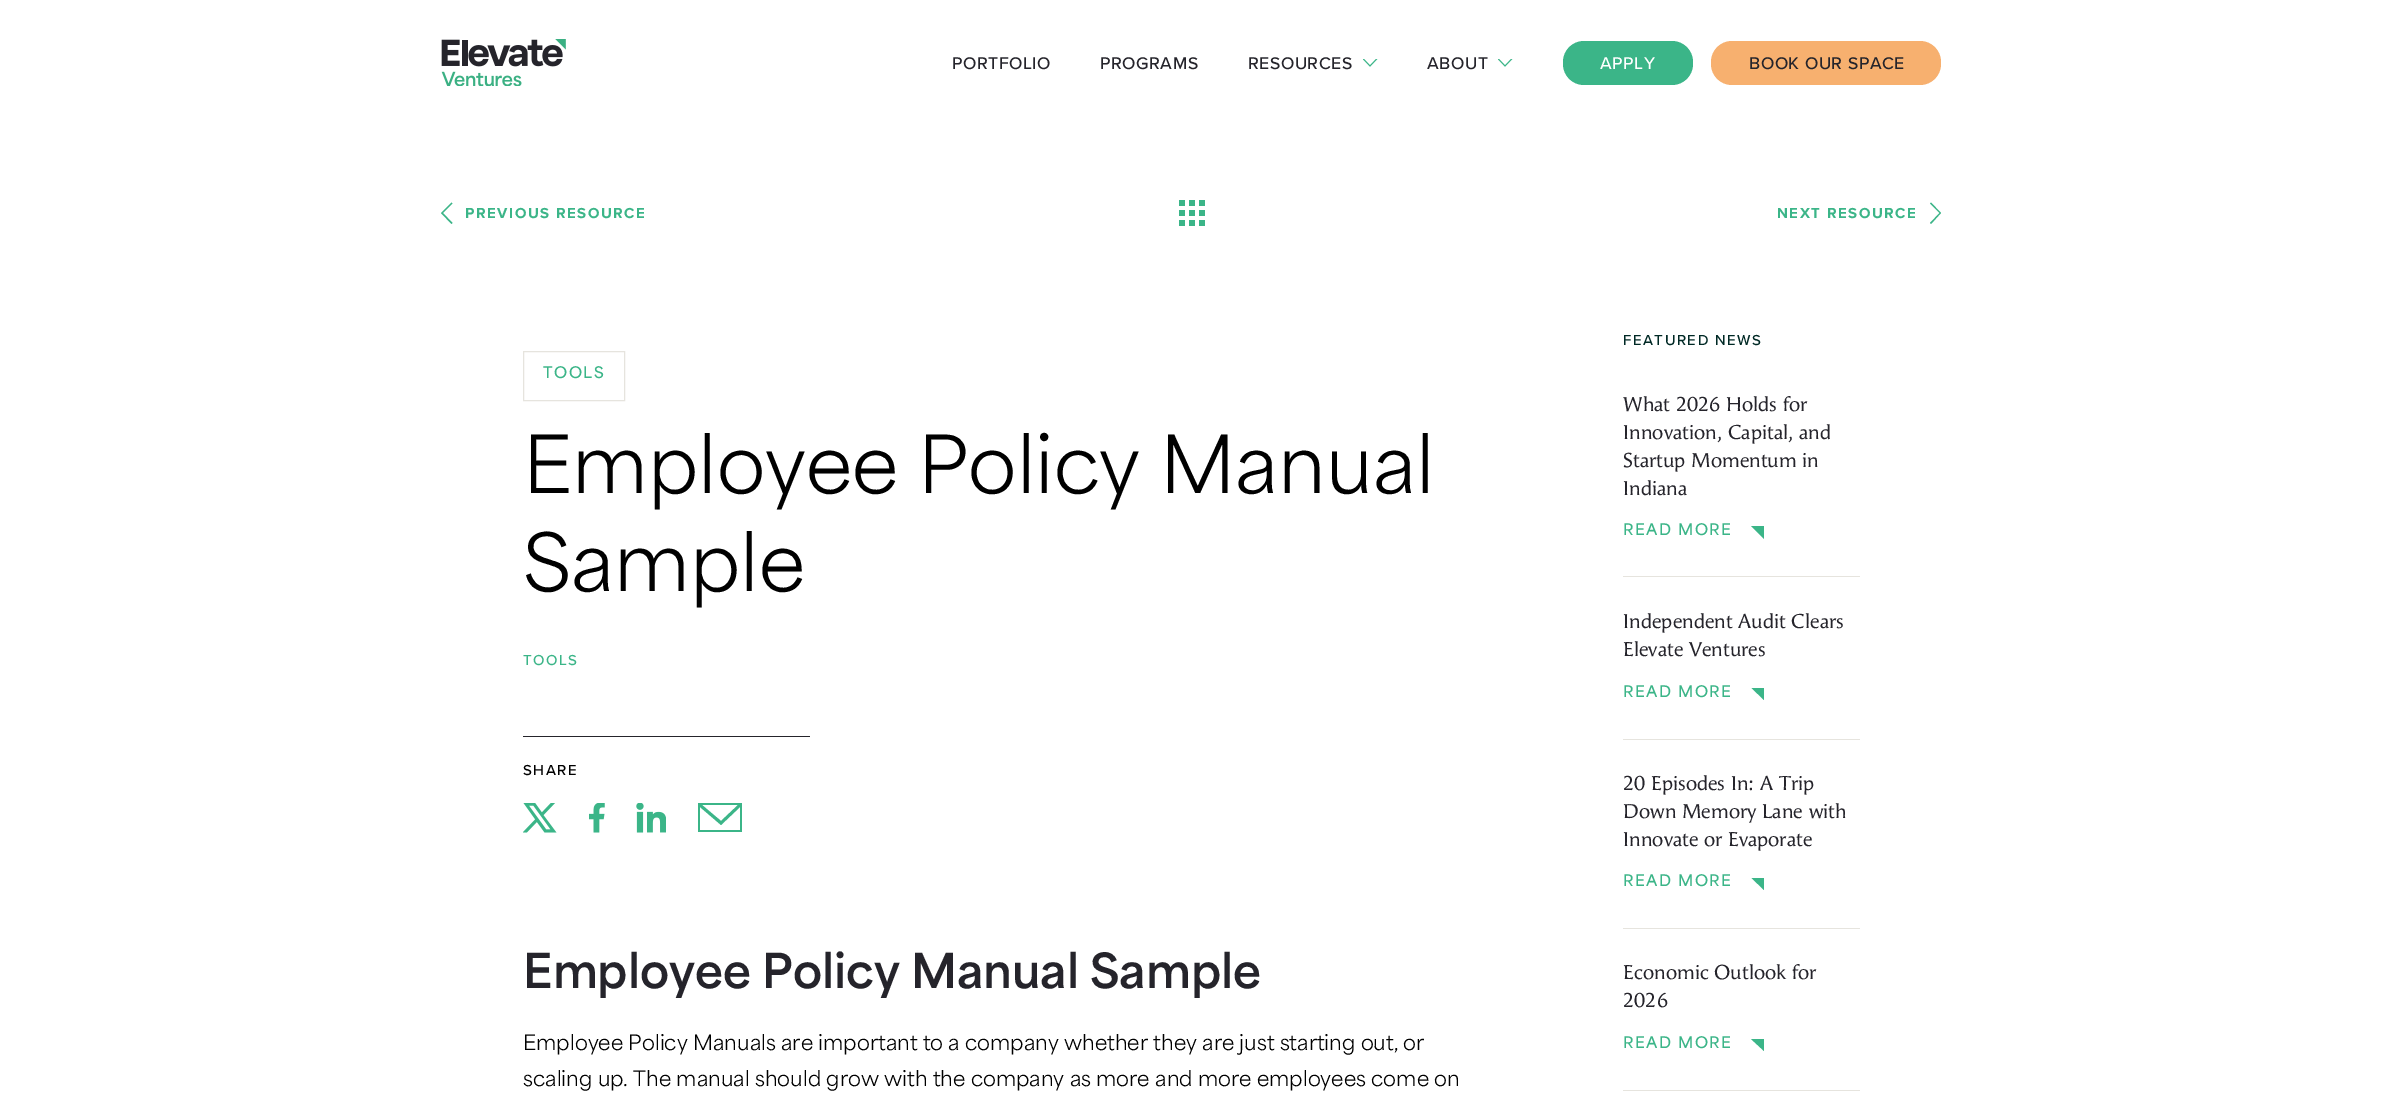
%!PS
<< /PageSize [2382 1117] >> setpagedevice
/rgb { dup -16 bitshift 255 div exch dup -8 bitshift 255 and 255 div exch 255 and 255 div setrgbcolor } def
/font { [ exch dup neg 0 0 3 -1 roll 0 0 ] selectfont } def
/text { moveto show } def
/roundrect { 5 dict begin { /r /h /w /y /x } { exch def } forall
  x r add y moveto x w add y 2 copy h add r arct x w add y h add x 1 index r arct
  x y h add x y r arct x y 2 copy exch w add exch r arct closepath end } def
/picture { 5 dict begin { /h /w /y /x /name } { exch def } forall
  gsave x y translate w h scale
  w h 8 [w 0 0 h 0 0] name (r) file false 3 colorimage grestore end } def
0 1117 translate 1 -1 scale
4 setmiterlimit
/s1 { /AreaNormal-Regular 75 font 16#000000 rgb } def
/s2 { /AreaNormal-Bold 45.25 font 16#25242B rgb } def
/s3 { /AreaNormal-Regular 20 font 16#000000 rgb } def
/s4 { /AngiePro-Regular 20 font 16#25242B rgb } def
16#FFFFFF rgb
0 0 2382 1117 rectfill
(pic1.raw) 441 39 125 47 picture
/ProximaNova-Medium 17.5 font
16#25242B rgb
952 69 moveto 0.5 0 (PORTFOLIO) ashow
1100 69 moveto 0.5 0 (PROGRAMS) ashow
1248 69 moveto 0.5 0 (RESOURCES) ashow
(pic2.raw) 1363 59 15 8 picture
1427 69 moveto 0.5 0 (ABOUT) ashow
(pic2.raw) 1498 59 15 8 picture
16#3BB588 rgb
1563 41 130 44 21 roundrect fill
16#FFFFFF rgb
1600 69 moveto 0.5 0 (APPLY) ashow
16#F7B06F rgb
1711 41 230 44 21 roundrect fill
16#25242B rgb
1749 69 moveto 0.5 0 (BOOK OUR SPACE) ashow
16#3BB588 rgb
451.5 224 moveto 441 213 lineto 451.5 202.5 lineto 452.5 203.5 lineto 443 213 lineto 452.5 223 lineto closepath fill
/ProximaNova-Bold 15 font
465 218 moveto 1.5 0 (PREVIOUS RESOURCE) ashow
(pic3.raw) 1179 200 26 26 picture
1777 218 moveto 1.5 0 (NEXT RESOURCE) ashow
1931 224 moveto 1941 213 lineto 1931 202.5 lineto 1930 203.5 lineto 1939.5 213 lineto 1930 223 lineto closepath fill
16#E6E4DE rgb
523.5 351.5 101 49 rectstroke
/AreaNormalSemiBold-SemiBold 15 font
16#3BB588 rgb
543 378 moveto 1.5 0 (TOOLS) ashow
s1
(Employee Policy Manual) 523 493 text
(Sample) 523 591 text
/ProximaNova-Medium 15 font
16#3BB588 rgb
523 665 moveto 1.5 0 (TOOLS) ashow
16#25242B rgb
523 736 287 1 rectfill
16#000000 rgb
523 775 moveto 1.5 0 (SHARE) ashow
(pic4.raw) 523 803 34 30 picture
(pic5.raw) 589 803 16 30 picture
(pic6.raw) 636 803 30 30 picture
gsave
698 803 45 30 rectclip
16#3BB588 rgb
698 802 moveto 698 832 lineto 742 832 lineto 742 802 lineto closepath 738 805 moveto 721 821 lineto 702 805 lineto closepath 700 830 moveto 700 807 lineto 721 825 lineto 740 807 lineto 740 830 lineto closepath fill
grestore
s2
(Employee Policy Manual Sample) 523 988 text
s3
(Employee Policy Manuals are important to a company whether they are just starting out, or) 523 1050 text
(scaling up. The manual should grow with the company as more and more employees come on) 523 1086 text
/ProximaNova-Medium 15 font
16#002925 rgb
1623 345 moveto 1.5 0 (FEATURED NEWS) ashow
16#E6E4DE rgb
1623 576 237 1 rectfill
s4
(What 2026 Holds for) 1623 411 text
(Innovation, Capital, and) 1623 439 text
(Startup Momentum in) 1623 467 text
(Indiana) 1623 495 text
/AreaNormalSemiBold-SemiBold 15 font
16#3BB588 rgb
1623 535 moveto 1.5 0 (READ MORE) ashow
1764 539 moveto 1751 526 lineto 1764 526 lineto closepath fill
16#E6E4DE rgb
1623 739 237 1 rectfill
s4
(Independent Audit Clears) 1623 628 text
(Elevate Ventures) 1623 656 text
/AreaNormalSemiBold-SemiBold 15 font
16#3BB588 rgb
1623 697 moveto 1.5 0 (READ MORE) ashow
gsave
1751 688 13 12 rectclip
1764 700 moveto 1751 687.5 lineto 1764 687.5 lineto closepath fill
grestore
16#E6E4DE rgb
1623 928 237 1 rectfill
s4
(20 Episodes In: A Trip) 1623 790 text
(Down Memory Lane with) 1623 818 text
(Innovate or Evaporate) 1623 846 text
/AreaNormalSemiBold-SemiBold 15 font
16#3BB588 rgb
1623 886 moveto 1.5 0 (READ MORE) ashow
gsave
1751 878 13 12 rectclip
1764 890 moveto 1751 877.5 lineto 1764 877.5 lineto closepath fill
grestore
16#E6E4DE rgb
1623 1090 237 1 rectfill
s4
(Economic Outlook for) 1623 979 text
(2026) 1623 1007 text
/AreaNormalSemiBold-SemiBold 15 font
16#3BB588 rgb
1623 1048 moveto 1.5 0 (READ MORE) ashow
1764 1051 moveto 1751 1039 lineto 1764 1039 lineto closepath fill
showpage
